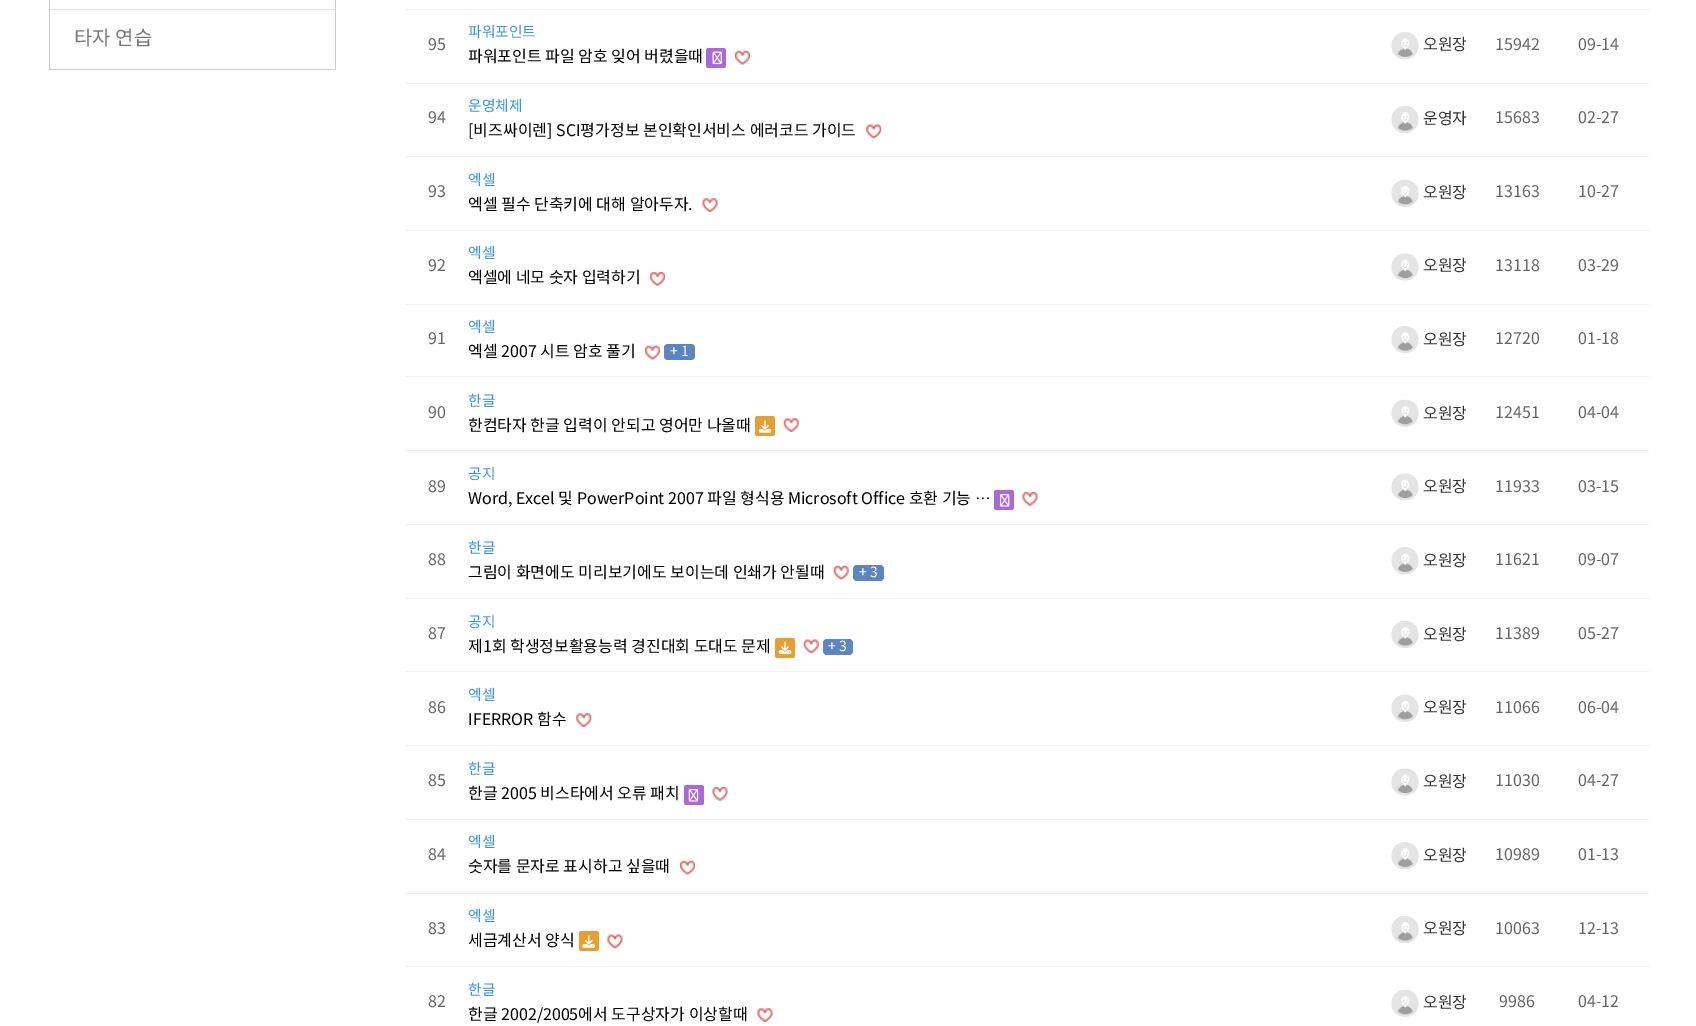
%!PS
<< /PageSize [1696 1026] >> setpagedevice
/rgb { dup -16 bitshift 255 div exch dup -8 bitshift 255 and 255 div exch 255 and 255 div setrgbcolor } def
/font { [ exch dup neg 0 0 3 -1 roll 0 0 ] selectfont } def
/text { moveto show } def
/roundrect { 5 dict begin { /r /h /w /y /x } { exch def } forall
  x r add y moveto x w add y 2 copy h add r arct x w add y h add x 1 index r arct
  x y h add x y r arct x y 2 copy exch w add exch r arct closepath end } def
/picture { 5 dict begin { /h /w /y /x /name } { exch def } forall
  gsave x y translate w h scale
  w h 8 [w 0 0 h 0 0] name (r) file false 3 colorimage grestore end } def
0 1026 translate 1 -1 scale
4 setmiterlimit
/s1 { /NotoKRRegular-Regular 20 font 16#777777 rgb } def
/s2 { /NotoKRRegular-Regular 16 font 16#666666 rgb } def
/s3 { /NotoKRRegular-Regular 14.75 font 16#3497D9 rgb } def
/s4 { /NotoKRRegular-Regular 16 font 16#000000 rgb } def
/s5 { /NotoKRRegular-Regular 16 font 16#333333 rgb } def
/s6 { /NotoKRRegular-Regular 14 font 16#FFFFFF rgb } def
/s7 { /Dotum-Regular 16 font 16#000000 rgb } def
16#FFFFFF rgb
0 0 1696 1026 rectfill
16#CCCCCC rgb
335 0 1 70 rectfill
49 69 287 1 rectfill
49 0 1 70 rectfill
16#E6E6E6 rgb
50 9 285 1 rectfill
s1
(타자 연습) 74 45 text
s2
(95) 428 50 text
s3
(파워포인트) 468 37 text
s4
(파워포인트 파일 암호 잊어 버렸을때) 468 62 text
16#AD68D8 rgb
706 48 20 20 2.5 roundrect fill
(pic1.raw) 712 51 10 14 picture
(pic2.raw) 735 50 15 15 picture
(pic3.raw) 1391 32 28 28 picture
s5
(오원장) 1423 50 text
s2
(15942) 1495 50 text
16#ECF0F1 rgb
405 9 1244 1 rectfill
s2
(09-14) 1578 50 text
(94) 428 123 text
s3
(운영체제) 468 111 text
s4
([비즈싸이렌] SCI평가정보 본인확인서비스 에러코드 가이드) 468 136 text
(pic4.raw) 866 124 16 15 picture
(pic5.raw) 1391 106 28 27 picture
s5
(운영자) 1423 124 text
s2
(15683) 1495 123 text
16#ECF0F1 rgb
405 83 1244 1 rectfill
s2
(02-27) 1578 123 text
(93) 428 197 text
s3
(엑셀) 468 185 text
s4
(엑셀 필수 단축키에 대해 알아두자.) 468 210 text
(pic6.raw) 702 198 16 14 picture
(pic7.raw) 1391 179 28 28 picture
s5
(오원장) 1423 198 text
s2
(13163) 1495 197 text
16#ECF0F1 rgb
405 156 1244 1 rectfill
s2
(10-27) 1578 197 text
(92) 428 271 text
s3
(엑셀) 468 258 text
s4
(엑셀에 네모 숫자 입력하기) 468 283 text
(pic8.raw) 650 272 15 14 picture
(pic9.raw) 1391 253 28 28 picture
s5
(오원장) 1423 271 text
s2
(13118) 1495 271 text
16#ECF0F1 rgb
405 230 1244 1 rectfill
s2
(03-29) 1578 271 text
(91) 428 344 text
s3
(엑셀) 468 332 text
s4
(엑셀 2007 시트 암호 풀기) 468 357 text
(pic10.raw) 645 345 15 15 picture
16#5C85C1 rgb
664 344 31 16 4 roundrect fill
s6
(+ 1) 670 356 text
(pic11.raw) 1391 326 28 27 picture
s5
(오원장) 1423 345 text
s2
(12720) 1495 344 text
16#ECF0F1 rgb
405 304 1244 1 rectfill
s2
(01-18) 1578 344 text
(90) 428 418 text
s3
(한글) 468 406 text
s4
(한컴타자 한글 입력이 안되고 영어만 나올때) 468 431 text
16#E89F31 rgb
755 416 20 20 2.5 roundrect fill
(pic12.raw) 758 420 14 13 picture
(pic13.raw) 783 418 16 14 picture
(pic7.raw) 1391 399 28 28 picture
s5
(오원장) 1423 419 text
s2
(12451) 1495 418 text
16#ECF0F1 rgb
405 376 1244 1 rectfill
s2
(04-04) 1578 418 text
(89) 428 492 text
s3
(공지) 468 479 text
s4
(Word, Excel 및 PowerPoint 2007 파일 형식용 Microsoft Office 호환 기능) 468 504 text
s7
(…) 975 504 text
16#AD68D8 rgb
994 490 20 20 2.5 roundrect fill
(pic14.raw) 1000 494 10 13 picture
(pic15.raw) 1022 492 16 14 picture
(pic9.raw) 1391 473 28 28 picture
s5
(오원장) 1423 492 text
s2
(11933) 1495 492 text
16#ECF0F1 rgb
405 450 1244 1 rectfill
s2
(03-15) 1578 492 text
(88) 428 565 text
s3
(한글) 468 553 text
s4
(그림이 화면에도 미리보기에도 보이는데 인쇄가 안될때) 468 578 text
(pic16.raw) 833 565 16 15 picture
16#5C85C1 rgb
853 565 31 16 4 roundrect fill
s6
(+ 3) 859 577 text
(pic3.raw) 1391 547 28 28 picture
s5
(오원장) 1423 566 text
s2
(11621) 1495 565 text
16#ECF0F1 rgb
405 524 1244 1 rectfill
s2
(09-07) 1578 565 text
(87) 428 639 text
s3
(공지) 468 627 text
s4
(제1회 학생정보활용능력 경진대회 도대도 문제) 468 652 text
16#E89F31 rgb
775 638 20 20 2.5 roundrect fill
(pic17.raw) 778 641 14 14 picture
(pic18.raw) 803 639 16 15 picture
16#5C85C1 rgb
823 639 30 16 4 roundrect fill
s6
(+ 3) 828 651 text
(pic5.raw) 1391 621 28 27 picture
s5
(오원장) 1423 640 text
s2
(11389) 1495 639 text
16#ECF0F1 rgb
405 598 1244 1 rectfill
s2
(05-27) 1578 639 text
(86) 428 713 text
s3
(엑셀) 468 700 text
s4
(IFERROR 함수) 468 725 text
(pic19.raw) 576 713 16 14 picture
(pic7.raw) 1391 694 28 28 picture
s5
(오원장) 1423 713 text
s2
(11066) 1495 713 text
16#ECF0F1 rgb
405 671 1244 1 rectfill
s2
(06-04) 1578 713 text
(85) 428 786 text
s3
(한글) 468 774 text
s4
(한글 2005 비스타에서 오류 패치) 468 799 text
16#AD68D8 rgb
684 785 20 20 2.5 roundrect fill
(pic20.raw) 688 789 11 13 picture
(pic21.raw) 712 787 16 14 picture
(pic22.raw) 1391 768 28 28 picture
s5
(오원장) 1423 787 text
s2
(11030) 1495 786 text
16#ECF0F1 rgb
405 745 1244 1 rectfill
s2
(04-27) 1578 786 text
(84) 428 860 text
s3
(엑셀) 468 847 text
s4
(숫자를 문자로 표시하고 싶을때) 468 872 text
(pic2.raw) 680 860 15 15 picture
(pic23.raw) 1391 842 28 28 picture
s5
(오원장) 1423 861 text
s2
(10989) 1495 860 text
16#ECF0F1 rgb
405 819 1244 1 rectfill
s2
(01-13) 1578 860 text
(83) 428 934 text
s3
(엑셀) 468 921 text
s4
(세금계산서 양식) 468 946 text
16#E89F31 rgb
579 931 20 20 2.5 roundrect fill
(pic24.raw) 582 935 13 13 picture
(pic25.raw) 607 934 16 15 picture
(pic5.raw) 1391 916 28 27 picture
s5
(오원장) 1423 934 text
s2
(10063) 1495 934 text
16#ECF0F1 rgb
405 893 1244 1 rectfill
s2
(12-13) 1578 934 text
(82) 428 1007 text
s3
(한글) 468 995 text
s4
(한글 2002/2005에서 도구상자가 이상할때) 468 1020 text
(pic6.raw) 757 1008 16 14 picture
(pic7.raw) 1391 989 28 28 picture
s5
(오원장) 1423 1008 text
s2
(9986) 1499 1007 text
16#ECF0F1 rgb
405 966 1244 1 rectfill
s2
(04-12) 1578 1007 text
showpage
